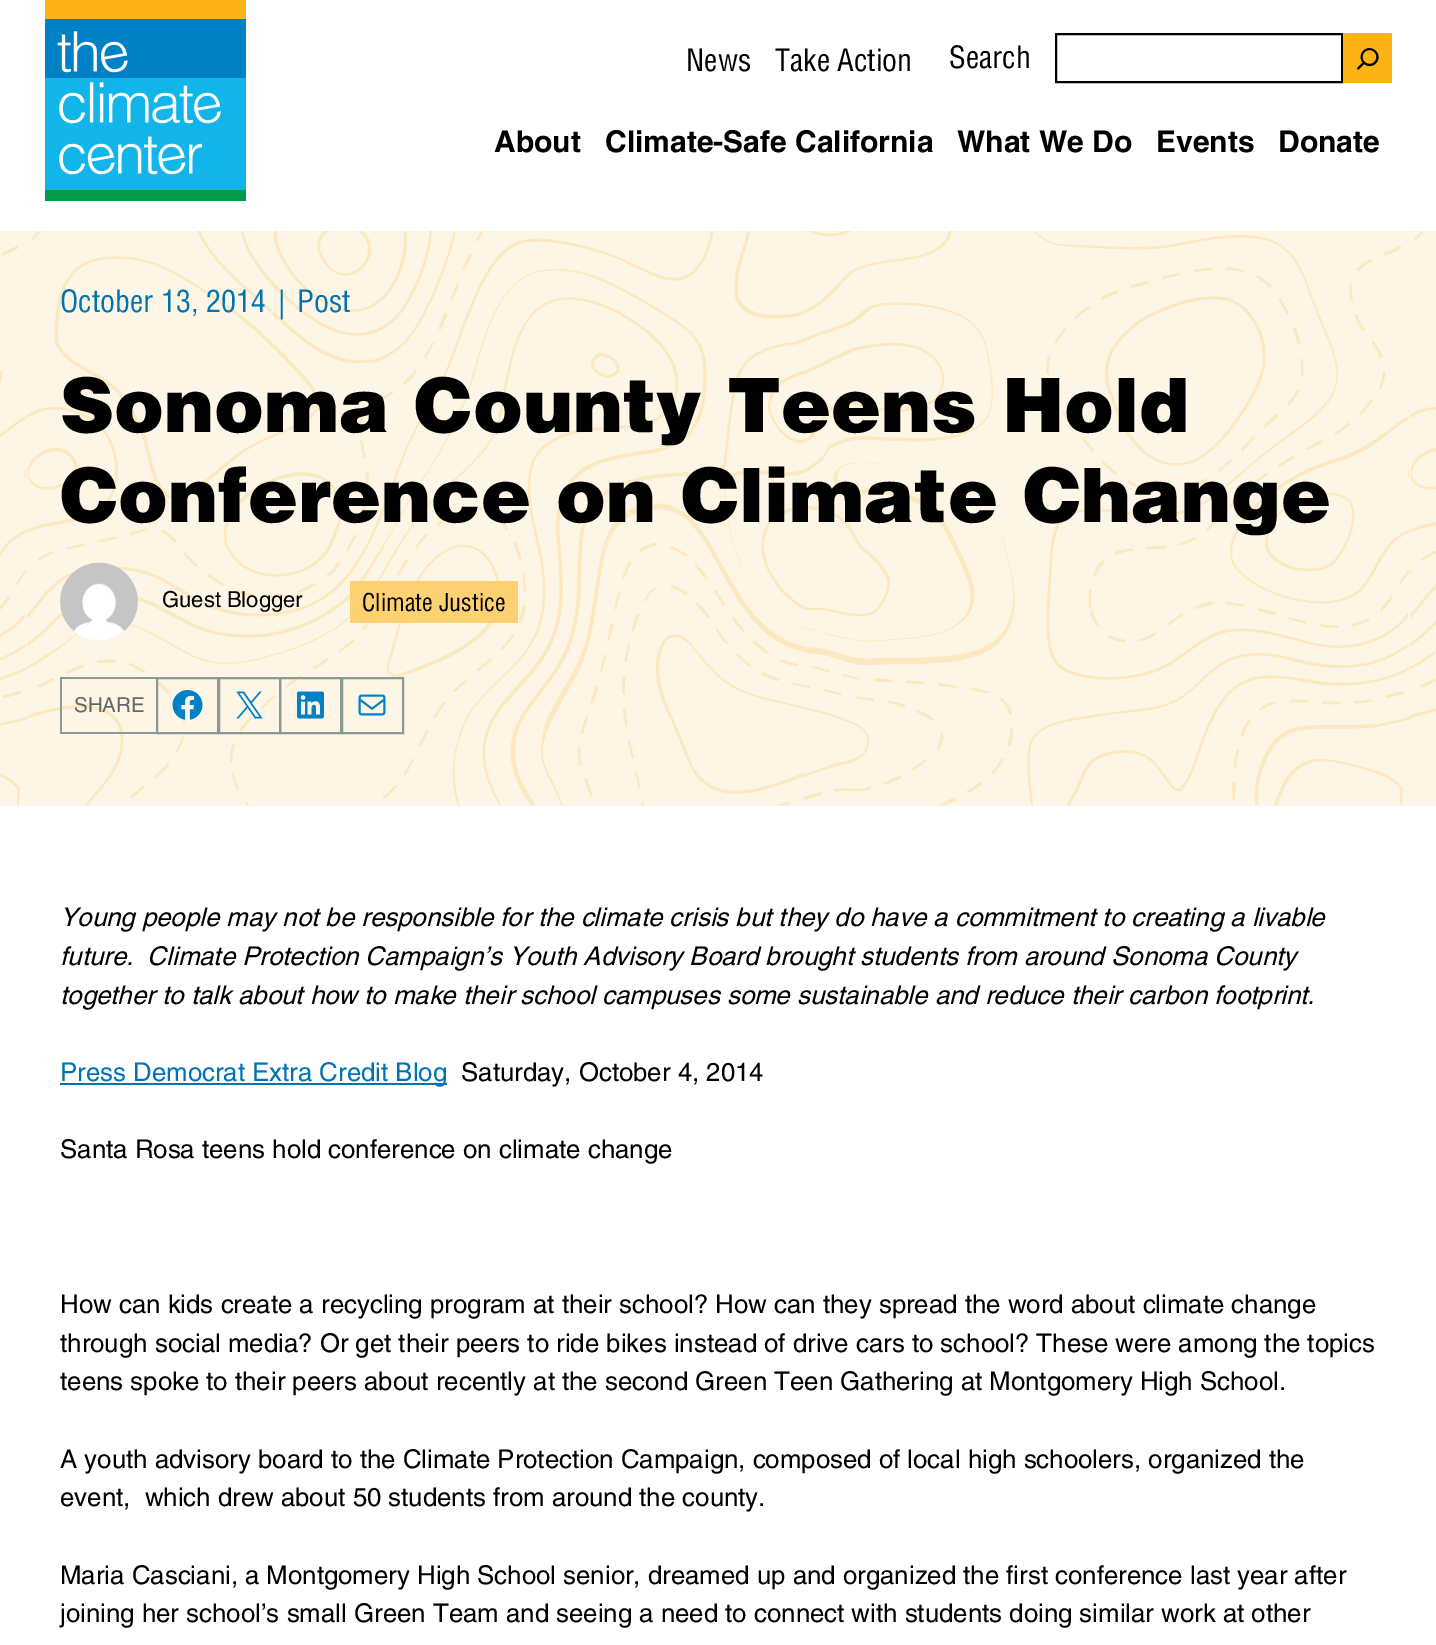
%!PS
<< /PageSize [1436 1645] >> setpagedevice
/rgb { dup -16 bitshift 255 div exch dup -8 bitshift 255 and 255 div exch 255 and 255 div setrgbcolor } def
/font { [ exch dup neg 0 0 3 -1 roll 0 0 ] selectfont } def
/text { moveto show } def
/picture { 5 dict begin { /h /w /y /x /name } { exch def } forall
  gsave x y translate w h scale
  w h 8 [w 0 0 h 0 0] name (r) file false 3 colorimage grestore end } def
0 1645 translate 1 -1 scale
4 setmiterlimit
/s1 { /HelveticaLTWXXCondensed-Regular 30 font 16#000000 rgb } def
/s2 { /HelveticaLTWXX-Bold 30 font 16#000000 rgb } def
/s3 { /HelveticaLTWXXCondensed-Regular 30 font 16#0074B2 rgb } def
/s4 { /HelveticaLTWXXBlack-Black 75 font 16#000000 rgb } def
/s5 { /HelveticaLTWXX-Regular 22 font 16#000000 rgb } def
/s6 { /HelveticaLTWXXCondensed-Regular 24 font 16#000000 rgb } def
/s7 { /HelveticaLTWXX-Regular 20.5 font 16#666666 rgb } def
/s8 { /HelveticaLTWXX-Italic 25.8 font 16#000000 rgb } def
/s9 { /HelveticaLTWXX-Regular 25.8 font 16#0074B2 rgb } def
/s10 { /HelveticaLTWXX-Regular 25.8 font 16#000000 rgb } def
16#FFFFFF rgb
0 0 1436 1645 rectfill
(pic1.raw) 45 0 201 201 picture
s1
(News) 686 71 text
(Take Action) 775 71 text
(Search) 949 68 text
2 setlinewidth
1056 34 286 48 rectstroke
16#FCB415 rgb
1343 33 49 50 rectfill
(pic2.raw) 1356 48 23 22 picture
s2
(About) 494 152 text
(Climate-Safe California) 605 152 text
(What We Do) 957 152 text
(Events) 1156 152 text
(Donate) 1278 152 text
16#FDF6E7 rgb
0 231 1436 575 rectfill
(pic3.raw) 0 231 1436 575 picture
s3
(October 13, 2014) 60 312 text
(|) 278 312 text
(Post) 297 312 text
s4
(Sonoma County Teens Hold) 60 432 text
(Conference on Climate Change) 60 522 text
(pic4.raw) 60 562 78 79 picture
s5
(Guest Blogger) 162 607 text
16#FDD172 rgb
350 581 168 42 rectfill
s6
(Climate Justice) 362 611 text
16#8B9B93 rgb
60 677 96 2 rectfill
60 732 96 2 rectfill
60 677 2 57 rectfill
s7
(SHARE) 74 712 text
16#8B9B93 rgb
157 678 61 55 rectstroke
(pic5.raw) 172 690 31 30 picture
219 678 61 55 rectstroke
(pic6.raw) 236 691 27 28 picture
280 678 61 55 rectstroke
(pic7.raw) 297 691 27 28 picture
342 678 61 55 rectstroke
(pic8.raw) 358 694 28 22 picture
s8
(Young people may not be responsible for the climate crisis but they do have a commitment to creating a livable) 60 926 text
(future.  Climate Protection Campaign’s Youth Advisory Board brought students from around Sonoma County) 60 965 text
(together to talk about how to make their school campuses some sustainable and reduce their carbon footprint.) 60 1004 text
16#0074B2 rgb
60 1083 387 2 rectfill
s9
(Press Democrat Extra Credit Blog) 60 1081 text
s10
(Saturday, October 4, 2014) 461 1081 text
(Santa Rosa teens hold conference on climate change) 60 1158 text
(How can kids create a recycling program at their school? How can they spread the word about climate change) 60 1313 text
(through social media? Or get their peers to ride bikes instead of drive cars to school? These were among the topics) 60 1352 text
(teens spoke to their peers about recently at the second Green Teen Gathering at Montgomery High School.) 60 1390 text
(A youth advisory board to the Climate Protection Campaign, composed of local high schoolers, organized the) 60 1468 text
(event,  which drew about 50 students from around the county.) 60 1506 text
(Maria Casciani, a Montgomery High School senior, dreamed up and organized the first conference last year after) 60 1584 text
(joining her school’s small Green Team and seeing a need to connect with students doing similar work at other) 60 1622 text
showpage
